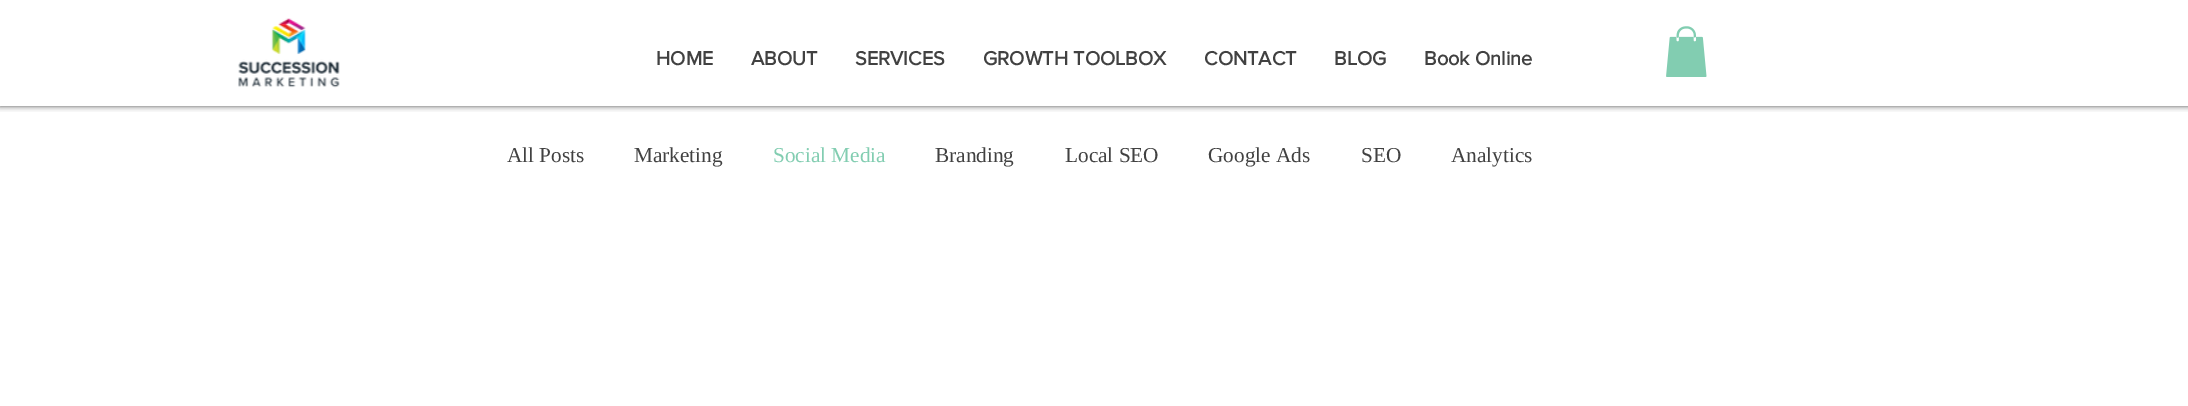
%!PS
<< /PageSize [2188 406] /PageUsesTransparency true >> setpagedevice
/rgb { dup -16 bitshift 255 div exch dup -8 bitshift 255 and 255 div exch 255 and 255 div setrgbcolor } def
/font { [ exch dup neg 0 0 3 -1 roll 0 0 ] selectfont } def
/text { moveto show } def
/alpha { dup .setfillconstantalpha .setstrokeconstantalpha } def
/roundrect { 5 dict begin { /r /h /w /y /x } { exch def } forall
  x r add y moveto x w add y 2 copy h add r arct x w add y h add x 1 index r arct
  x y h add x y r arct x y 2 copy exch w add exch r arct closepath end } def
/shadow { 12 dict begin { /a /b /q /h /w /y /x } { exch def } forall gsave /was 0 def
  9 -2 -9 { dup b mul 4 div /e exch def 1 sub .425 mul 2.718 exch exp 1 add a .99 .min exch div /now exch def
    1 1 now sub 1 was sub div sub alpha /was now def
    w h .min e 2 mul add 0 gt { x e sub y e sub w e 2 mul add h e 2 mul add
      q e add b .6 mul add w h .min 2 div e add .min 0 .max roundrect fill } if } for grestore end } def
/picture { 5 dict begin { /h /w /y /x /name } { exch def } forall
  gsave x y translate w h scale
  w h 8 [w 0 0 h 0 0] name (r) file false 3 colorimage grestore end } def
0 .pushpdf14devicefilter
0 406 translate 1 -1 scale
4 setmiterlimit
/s1 { /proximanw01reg-Bold 20 font 16#414141 rgb } def
/s2 { /LiberationSerif-Regular 21.25 font 16#414141 rgb } def
/s3 { /LiberationSerif-Regular 21.25 font 16#82CDB1 rgb } def
16#FFFFFF rgb
0 0 2188 406 rectfill
gsave
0 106 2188 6 rectclip
16#000000 rgb
0 0 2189 106 0 3 0.7 shadow
grestore
(pic1.raw) 238 18 102 70 picture
s1
(HOME) 656 65 text
(ABOUT) 751 65 text
(SERVICES) 855 65 text
(GROWTH TOOLBOX) 983 65 text
(CONTACT) 1204 65 text
(BLOG) 1334 65 text
(Book Online) 1424 65 text
(pic2.raw) 1666 26 41 51 picture
s2
(All Posts) 507 162 text
(Marketing) 634 162 text
s3
(Social Media) 773 162 text
s2
(Branding) 935 162 text
(Local SEO) 1065 162 text
(Google Ads) 1208 162 text
(SEO) 1361 162 text
(Analytics) 1451 162 text
.poppdf14devicefilter showpage
